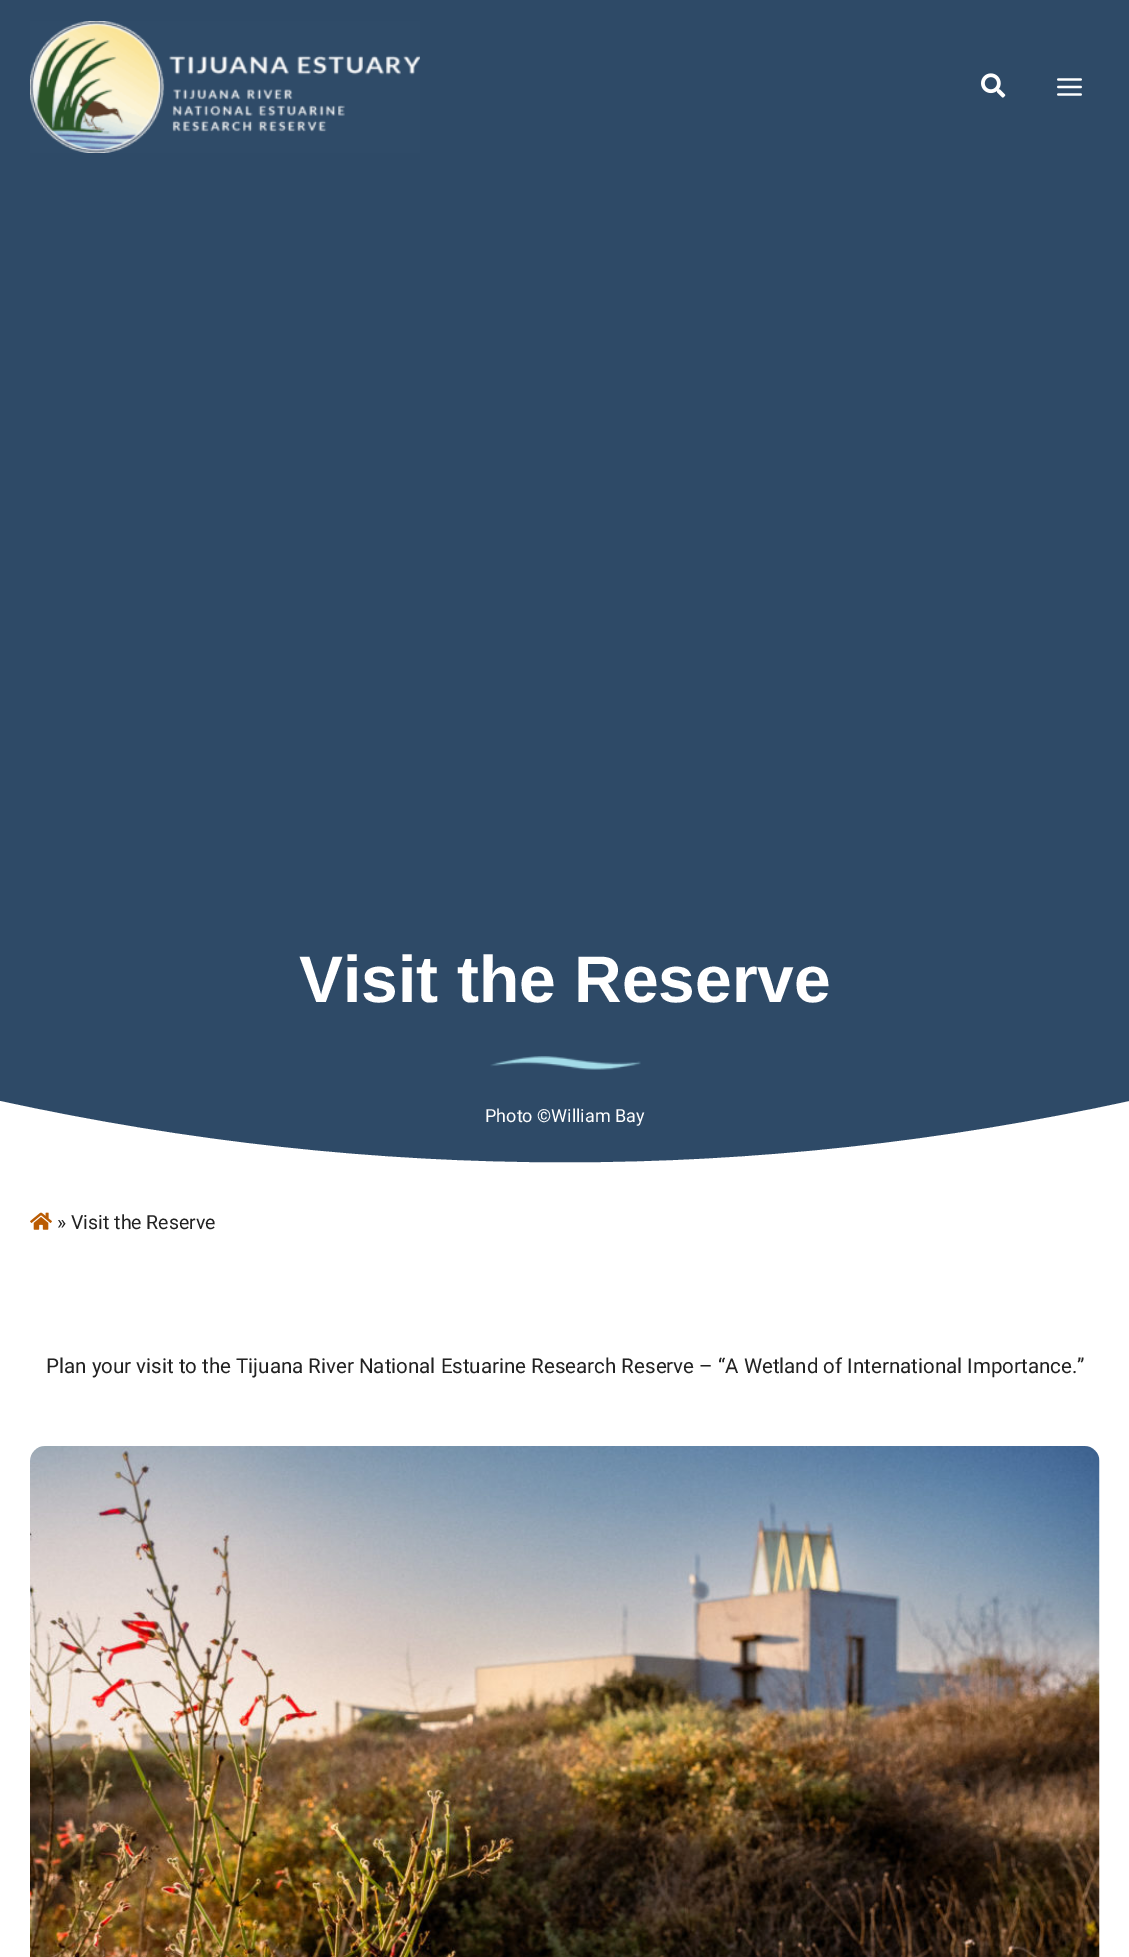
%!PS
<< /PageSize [1129 1957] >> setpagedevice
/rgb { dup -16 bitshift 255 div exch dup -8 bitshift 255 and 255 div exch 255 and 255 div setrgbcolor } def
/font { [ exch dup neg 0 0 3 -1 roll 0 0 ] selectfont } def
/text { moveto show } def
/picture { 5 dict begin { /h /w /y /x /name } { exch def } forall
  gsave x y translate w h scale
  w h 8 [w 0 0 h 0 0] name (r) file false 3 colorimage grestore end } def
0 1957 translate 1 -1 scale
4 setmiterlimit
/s1 { /LiberationSans-Bold 66 font 16#FFFFFF rgb } def
/s2 { /Roboto-Regular 18 font 16#FFFFFF rgb } def
/s3 { /Roboto-Regular 19.5 font 16#222222 rgb } def
/s4 { /Roboto-Regular 20.52 font 16#222222 rgb } def
16#FFFFFF rgb
0 0 1129 1957 rectfill
16#2E4A67 rgb
0 0 1129 1163 rectfill
(pic1.raw) 30 21 390 132 picture
(pic2.raw) 981 73 25 25 picture
(pic3.raw) 1057 78 25 18 picture
s1
(Visit the Reserve) 299 1002 text
(pic4.raw) 490 1056 151 14 picture
0 1176 moveto 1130 1176 lineto 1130 1101 lineto 755 1183 375 1183 0 1101 curveto closepath fill
s2
(Photo ©William Bay) 485 1122 text
(pic5.raw) 30 1212 22 18 picture
s3
(» Visit the Reserve) 57 1229 text
s4
(Plan your visit to the Tijuana River National Estuarine Research Reserve – “A Wetland of International Importance.”) 46 1373 text
(pic6.raw) 30 1446 1070 511 picture
showpage
